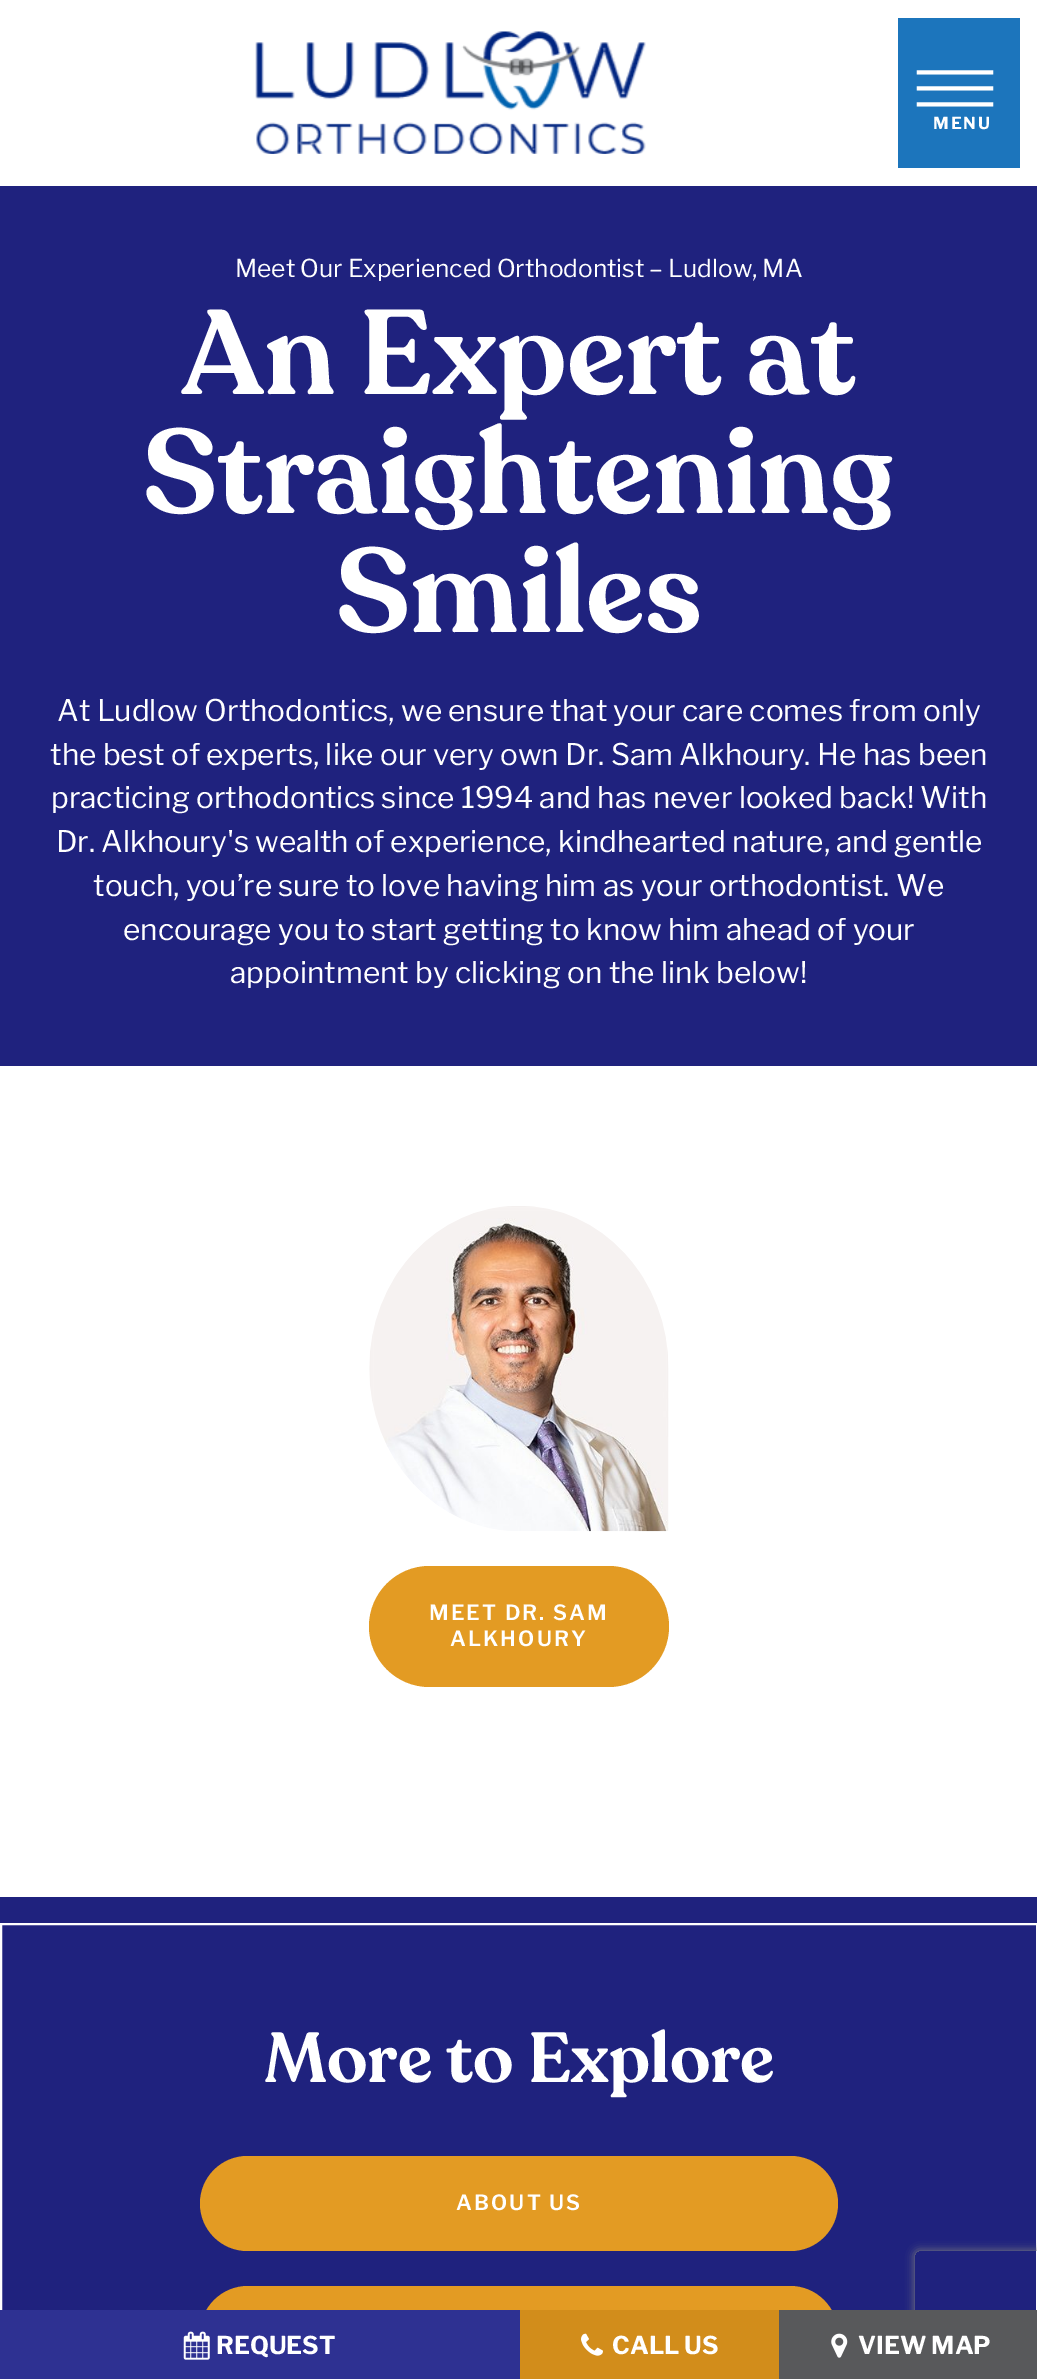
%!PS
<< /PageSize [1037 2379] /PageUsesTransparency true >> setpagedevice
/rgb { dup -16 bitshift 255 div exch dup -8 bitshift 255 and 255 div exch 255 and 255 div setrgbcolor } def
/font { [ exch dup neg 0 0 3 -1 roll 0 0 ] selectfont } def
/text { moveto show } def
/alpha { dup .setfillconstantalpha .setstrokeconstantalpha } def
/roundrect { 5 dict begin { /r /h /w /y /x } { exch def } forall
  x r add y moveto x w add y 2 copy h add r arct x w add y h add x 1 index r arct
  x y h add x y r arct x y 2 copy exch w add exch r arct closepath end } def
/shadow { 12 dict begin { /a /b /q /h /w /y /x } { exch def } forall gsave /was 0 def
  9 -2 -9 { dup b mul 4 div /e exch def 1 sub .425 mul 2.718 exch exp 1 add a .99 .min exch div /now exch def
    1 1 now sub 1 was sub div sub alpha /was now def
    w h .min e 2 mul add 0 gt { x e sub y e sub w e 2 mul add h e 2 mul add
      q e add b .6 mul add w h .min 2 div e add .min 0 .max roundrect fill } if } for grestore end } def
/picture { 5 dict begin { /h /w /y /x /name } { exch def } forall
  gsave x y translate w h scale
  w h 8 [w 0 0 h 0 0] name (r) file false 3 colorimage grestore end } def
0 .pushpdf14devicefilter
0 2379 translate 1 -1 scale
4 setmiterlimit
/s1 { /LibreFranklin-Regular 24.5 font 16#FFFFFF rgb } def
/s2 { /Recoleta-SemiBold 119 font 16#FFFFFF rgb } def
/s3 { /LibreFranklin-Regular 29.75 font 16#FFFFFF rgb } def
/s4 { /Recoleta-SemiBold 70 font 16#FFFFFF rgb } def
/s5 { /LibreFranklin-Bold 24.5 font 16#FFFFFF rgb } def
16#FFFFFF rgb
0 0 1037 2379 rectfill
(pic1.raw) 255 31 391 123 picture
16#1C75BC rgb
898 18 122 150 rectfill
/LiberationSerif-Regular 84 font
16#FFFFFF rgb
gsave 935 64 translate 90 rotate 0 0 moveto -1 0 (|||) ashow grestore
/LibreFranklin-Bold 16.5 font
933 129 moveto 2 0 (MENU) ashow
16#1F227E rgb
0 186 1037 880 rectfill
s1
(Meet Our Experienced Orthodontist – Ludlow, MA) 235 277 text
s2
(An Expert at) 181 394 text
(Straightening) 143 513 text
(Smiles) 336 632 text
s3
(At Ludlow Orthodontics, we ensure that your care comes from only) 57 721 text
(the best of experts, like our very own Dr. Sam Alkhoury. He has been) 50 765 text
(practicing orthodontics since 1994 and has never looked back! With) 51 808 text
(Dr. Alkhoury's wealth of experience, kindhearted nature, and gentle) 56 852 text
(touch, you’re sure to love having him as your orthodontist. We) 93 896 text
(encourage you to start getting to know him ahead of your) 123 940 text
(appointment by clicking on the link below!) 230 983 text
(pic2.raw) 369 1206 300 326 picture
16#E39B23 rgb
369 1566 300 121 60.5 roundrect fill
/LibreFranklin-SemiBold 21 font
16#FFFFFF rgb
429 1620 moveto 2.1 0 (MEET DR. SAM) ashow
450 1646 moveto 2.1 0 (ALKHOURY) ashow
16#1F227E rgb
0 1897 1037 413 rectfill
16#FFFFFF rgb
2 setlinewidth
1 1924 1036 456 rectstroke
s4
(More to Explore) 264 2082 text
16#E39B23 rgb
200 2156 638 95 47.5 roundrect fill
/LibreFranklin-SemiBold 21 font
16#FFFFFF rgb
456 2210 moveto 2.1 0 (ABOUT US) ashow
16#E39B23 rgb
200 2286 638 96 48 roundrect fill
gsave
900 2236 moveto 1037 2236 lineto 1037 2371 lineto 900 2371 lineto closepath 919 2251 moveto 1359 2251 lineto 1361 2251 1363 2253 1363 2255 curveto 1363 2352 lineto 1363 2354 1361 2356 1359 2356 curveto 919 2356 lineto 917 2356 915 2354 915 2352 curveto 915 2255 lineto 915 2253 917 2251 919 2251 curveto closepath eoclip newpath
16#808080 rgb
915 2251 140 105 4 4.5 1 shadow
grestore
16#2E3192 rgb
0 2310 520 69 rectfill
(pic3.raw) 183 2331 27 29 picture
s5
(REQUEST) 216 2354 text
16#D28D1B rgb
520 2310 259 69 rectfill
(pic4.raw) 581 2333 22 23 picture
s5
(CALL US) 612 2354 text
16#58595B rgb
779 2310 258 69 rectfill
(pic5.raw) 831 2333 17 25 picture
s5
(VIEW MAP) 858 2354 text
.poppdf14devicefilter showpage
